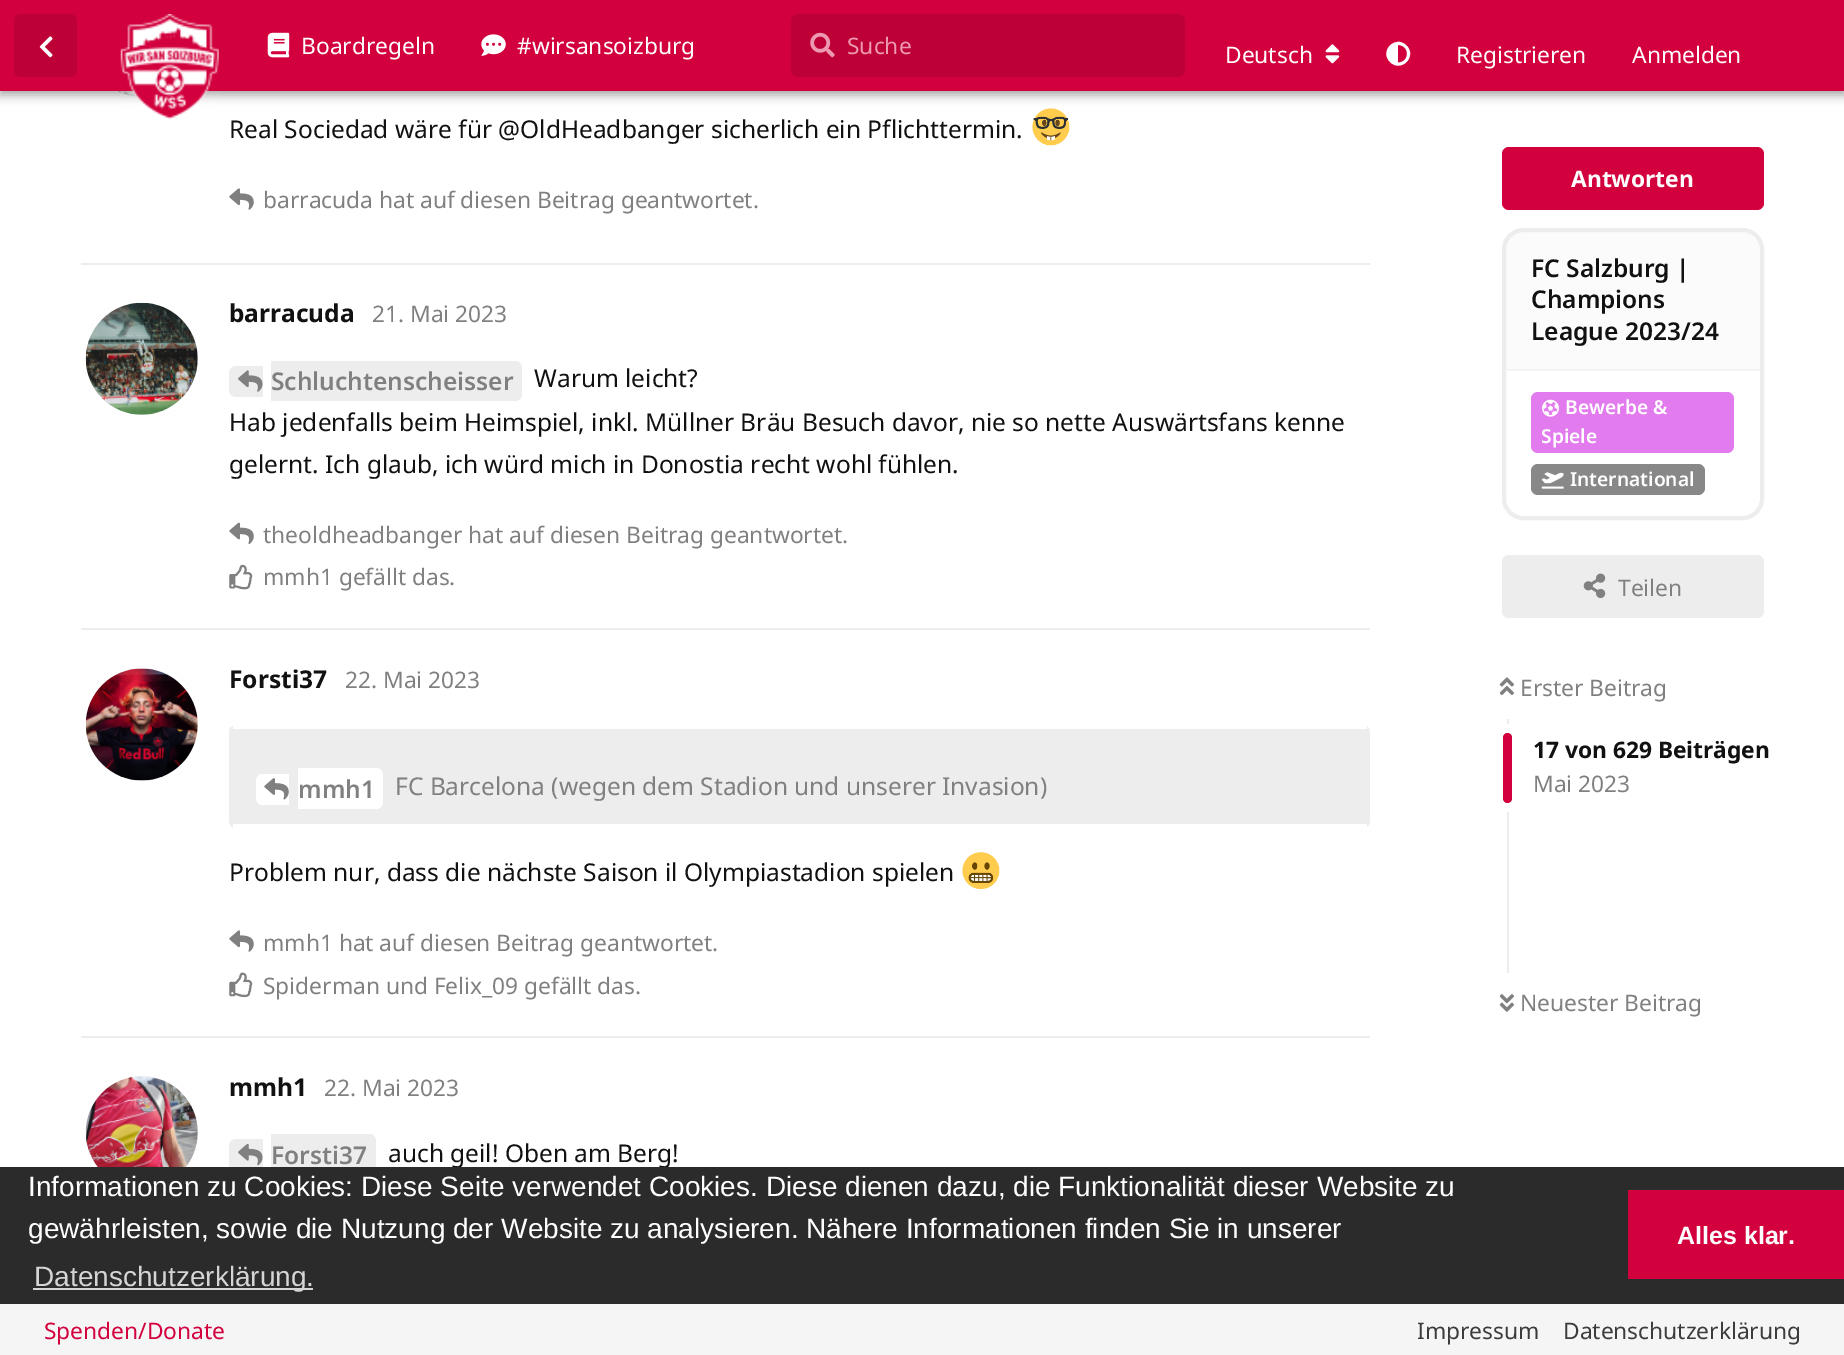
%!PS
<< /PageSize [1844 1355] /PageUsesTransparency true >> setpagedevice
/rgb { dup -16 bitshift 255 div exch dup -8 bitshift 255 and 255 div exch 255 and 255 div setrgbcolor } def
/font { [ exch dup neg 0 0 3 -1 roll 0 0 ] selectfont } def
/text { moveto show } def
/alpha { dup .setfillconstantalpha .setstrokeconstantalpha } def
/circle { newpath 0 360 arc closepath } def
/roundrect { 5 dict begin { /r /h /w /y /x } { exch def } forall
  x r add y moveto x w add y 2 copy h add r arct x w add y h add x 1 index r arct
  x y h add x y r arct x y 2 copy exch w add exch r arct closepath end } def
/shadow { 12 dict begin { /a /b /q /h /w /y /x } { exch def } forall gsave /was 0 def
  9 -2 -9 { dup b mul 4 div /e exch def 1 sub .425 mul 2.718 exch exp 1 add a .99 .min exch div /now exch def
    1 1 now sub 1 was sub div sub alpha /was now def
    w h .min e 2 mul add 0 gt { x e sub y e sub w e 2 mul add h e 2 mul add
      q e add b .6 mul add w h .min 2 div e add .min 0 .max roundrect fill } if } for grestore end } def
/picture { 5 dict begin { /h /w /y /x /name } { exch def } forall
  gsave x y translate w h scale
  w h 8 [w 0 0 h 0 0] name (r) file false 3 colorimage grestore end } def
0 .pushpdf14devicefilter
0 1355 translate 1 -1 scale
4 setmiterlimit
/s1 { /NotoSans-Regular 22.75 font 16#FFFFFF rgb } def
/s2 { /NotoSans-Regular 22.75 font 16#ED99B1 rgb } def
/s3 { /NotoSans-Regular 24.5 font 16#111111 rgb } def
/s4 { /NotoSans-Regular 22.75 font 16#808080 rgb } def
/s5 { /NotoSans-Bold 24.5 font 16#111111 rgb } def
/s6 { /NotoSans-SemiBold 24.5 font 16#808080 rgb } def
/s7 { /NotoSans-Regular 24.5 font 16#808080 rgb } def
/s8 { /NotoSans-Bold 22.75 font 16#FFFFFF rgb } def
/s9 { /NotoSans-SemiBold 24.5 font 16#111111 rgb } def
/s10 { /NotoSans-SemiBold 19.25 font 16#FFFFFF rgb } def
/s11 { /NotoSans-Bold 22.75 font 16#111111 rgb } def
/s12 { /LiberationSans-Regular 28 font 16#FFFFFF rgb } def
/s13 { /LiberationSans-Regular 28 font 16#D5D5D5 rgb } def
/s14 { /LiberationSans-Bold 25 font 16#FFFFFF rgb } def
/s15 { /NotoSans-Regular 22.75 font 16#D2003C rgb } def
/s16 { /NotoSans-Regular 22.75 font 16#3C3C3C rgb } def
16#FFFFFF rgb
0 0 1844 1355 rectfill
16#EDEDED rgb
83.5 -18.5 117 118 58.5 roundrect gsave fill grestore
16#FFFFFF rgb
5 setlinewidth
stroke
(pic7.raw) 118 91 21 5 picture
(pic8.raw) 1032 108 38 38 picture
16#000000 rgb
0 4 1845 91 0 5 0.35 shadow
16#D2003C rgb
0 0 1844 91 rectfill
16#BD0036 rgb
14 14 63 63 7 roundrect fill
(pic1.raw) 39 36 14 22 picture
(pic2.raw) 120 14 99 105 picture
(pic3.raw) 267 32 23 26 picture
s1
(Boardregeln) 301 54 text
(pic4.raw) 481 34 25 22 picture
(#wirsansoizburg) 517 54 text
16#BD0036 rgb
791 14 394 63 7 roundrect fill
(pic5.raw) 810 32 25 26 picture
s2
(Suche) 847 54 text
s1
(Deutsch) 1225 63 text
(pic6.raw) 1325 44 15 20 picture
1390 62 moveto 1379 51 1395.5 34.5 1406.5 45.5 curveto 1417.5 56.5 1401 73 1390 62 curveto closepath 1398 62.5 moveto 1410 62.5 1410 45 1398 45 curveto closepath fill
(Registrieren) 1456 63 text
(Anmelden) 1632 63 text
16#EDEDED rgb
81 263 1289 2 rectfill
s3
(Real Sociedad wäre für @OldHeadbanger sicherlich ein Pflichttermin.) 229 138 text
(pic9.raw) 229 188 25 22 picture
s4
(barracuda hat auf diesen Beitrag geantwortet.) 263 208 text
16#EDEDED rgb
81 628 1289 2 rectfill
142 359 58.5 circle gsave fill grestore
16#FFFFFF rgb
stroke
(pic10.raw) 85 302 113 113 picture
s5
(barracuda) 229 322 text
s4
(21. Mai 2023) 372 322 text
16#EDEDED rgb
236 366 moveto 263 366 lineto 263 397 lineto 236 397 lineto 232 397 229 394 229 390 curveto 229 373 lineto 229 369 232 366 236 366 curveto closepath fill
271 361 moveto 515 361 lineto 519 361 522 364 522 368 curveto 522 394 lineto 522 398 519 401 515 401 curveto 271 401 lineto closepath fill
(pic11.raw) 238 370 25 22 picture
s6
(Schluchtenscheisser) 271 390 text
s3
(Warum leicht?) 534 387 text
(Hab jedenfalls beim Heimspiel, inkl. Müllner Bräu Besuch davor, nie so nette Auswärtsfans kenne) 229 431 text
(gelernt. Ich glaub, ich würd mich in Donostia recht wohl fühlen.) 229 473 text
(pic12.raw) 229 522 25 22 picture
s4
(theoldheadbanger hat auf diesen Beitrag geantwortet.) 263 543 text
(pic13.raw) 229 564 24 26 picture
(mmh1 gefällt das.) 263 585 text
16#EDEDED rgb
81 1036 1289 2 rectfill
83.5 665.5 117 118 58.5 roundrect gsave fill grestore
16#FFFFFF rgb
stroke
(pic14.raw) 85 668 113 113 picture
s5
(Forsti37) 229 688 text
s4
(22. Mai 2023) 345 688 text
16#EDEDED rgb
229 725 1141 103 7 roundrect fill
16#FFFFFF rgb
233 725 1134 4 rectfill
233 824 1134 4 rectfill
263 774 moveto 289 774 lineto 289 805 lineto 263 805 lineto 259 805 256 802 256 798 curveto 256 781 lineto 256 777 259 774 263 774 curveto closepath fill
298 768 moveto 376 768 lineto 380 768 383 771 383 775 curveto 383 802 lineto 383 806 380 809 376 809 curveto 298 809 lineto closepath fill
(pic15.raw) 264 778 25 22 picture
s6
(mmh1) 298 798 text
s7
(FC Barcelona \(wegen dem Stadion und unserer Invasion\)) 395 795 text
s3
(Problem nur, dass die nächste Saison il Olympiastadion spielen) 229 881 text
(pic16.raw) 962 852 38 37 picture
(pic9.raw) 229 930 25 22 picture
s4
(mmh1 hat auf diesen Beitrag geantwortet.) 263 951 text
(pic17.raw) 229 972 24 26 picture
(Spiderman und Felix_09 gefällt das.) 263 994 text
16#EDEDED rgb
83.5 1073.5 117 118 58.5 roundrect gsave fill grestore
16#FFFFFF rgb
stroke
(pic18.raw) 85 1076 113 91 picture
s5
(mmh1) 229 1096 text
s4
(22. Mai 2023) 324 1096 text
16#EDEDED rgb
236 1139 moveto 263 1139 lineto 263 1171 lineto 236 1171 lineto 232 1171 229 1168 229 1164 curveto 229 1146 lineto 229 1142 232 1139 236 1139 curveto closepath fill
271 1134 moveto 369 1134 lineto 373 1134 376 1137 376 1141 curveto 376 1167 lineto 376 1171 373 1174 369 1174 curveto 271 1174 lineto closepath fill
(pic19.raw) 238 1143 25 23 picture
s6
(Forsti37) 271 1164 text
s3
(auch geil! Oben am Berg!) 388 1162 text
16#D2003C rgb
1502 147 262 63 7 roundrect fill
s8
(Antworten) 1571 187 text
16#EDEDED rgb
4 setlinewidth
1504 230 258 288 19 roundrect stroke
0.2 alpha
1523 231 moveto 1743 231 lineto 1753 231 1761 239 1761 249 curveto 1761 371 lineto 1505 371 lineto 1505 249 lineto 1505 239 1513 231 1523 231 curveto closepath fill
0.5 alpha
1505 369 256 2 rectfill
1 alpha
s9
(FC Salzburg |) 1531 277 text
(Champions) 1531 308 text
(League 2023/24) 1531 340 text
16#E27BED rgb
1531 392 203 61 7 roundrect fill
(pic20.raw) 1542 399 17 18 picture
s10
(Bewerbe &) 1565 414 text
(Spiele) 1541 443 text
16#888888 rgb
1531 464 174 31 7 roundrect fill
(pic21.raw) 1541 472 23 17 picture
s10
(International) 1570 486 text
16#EDEDED rgb
1502 555 262 63 7 roundrect fill
(pic22.raw) 1583 573 23 26 picture
s4
(Teilen) 1618 596 text
(pic23.raw) 1499 677 15 18 picture
(Erster Beitrag) 1520 696 text
16#EDEDED rgb
1507 719 2 5 rectfill
16#D2003C rgb
1503 733 9 70 4.5 roundrect fill
s11
(17 von 629 Beiträgen) 1533 758 text
s4
(Mai 2023) 1533 792 text
16#EDEDED rgb
1507 812 2 161 rectfill
(pic24.raw) 1499 994 15 18 picture
s4
(Neuester Beitrag) 1520 1011 text
16#2B2B2B rgb
0 1167 1844 137 rectfill
s12
(Informationen zu Cookies: Diese Seite verwendet Cookies. Diese dienen dazu, die Funktionalität dieser Website zu) 28 1196 text
(gewährleisten, sowie die Nutzung der Website zu analysieren. Nähere Informationen finden Sie in unserer) 28 1238 text
16#D5D5D5 rgb
33 1288 280 2 rectfill
(Datenschutzerklärung.) 34 1286 text
16#D2003C rgb
1628 1190 216 89 rectfill
s14
(Alles klar.) 1677 1244 text
16#F5F5F5 rgb
0 1304 1844 51 rectfill
s15
(Spenden/Donate) 44 1339 text
s16
(Impressum) 1417 1339 text
(Datenschutzerklärung) 1563 1339 text
.poppdf14devicefilter showpage
